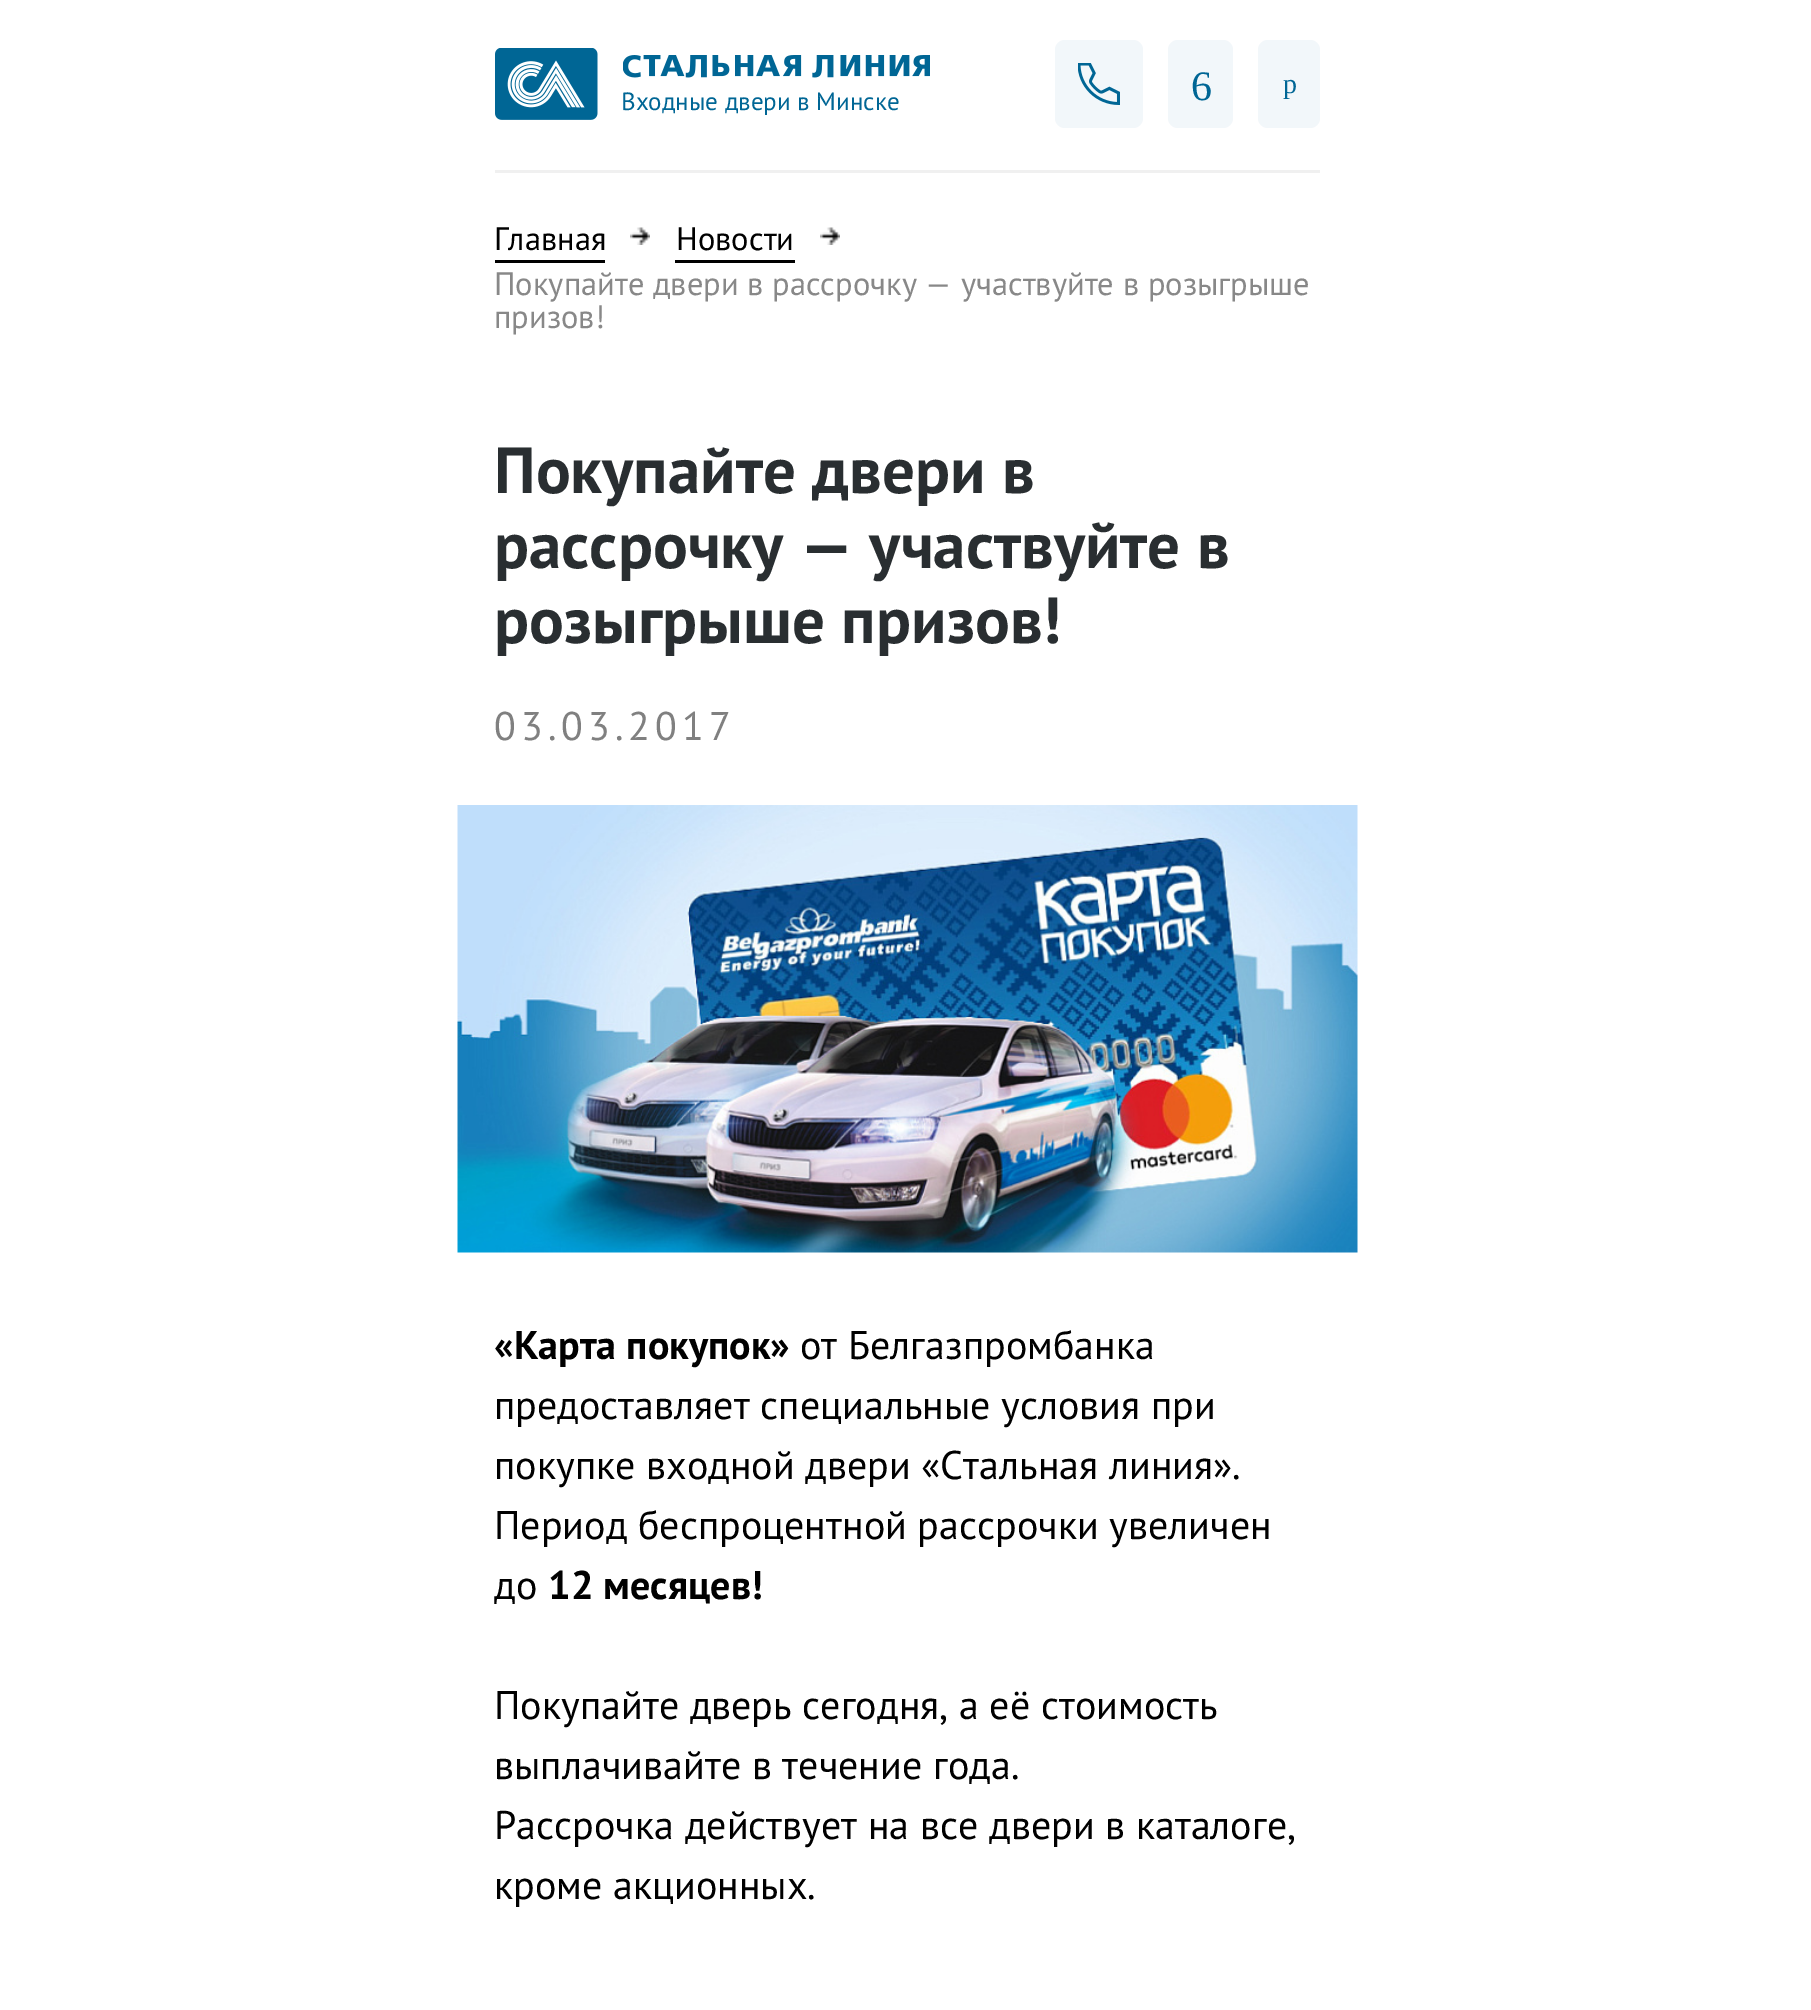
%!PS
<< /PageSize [1811 2010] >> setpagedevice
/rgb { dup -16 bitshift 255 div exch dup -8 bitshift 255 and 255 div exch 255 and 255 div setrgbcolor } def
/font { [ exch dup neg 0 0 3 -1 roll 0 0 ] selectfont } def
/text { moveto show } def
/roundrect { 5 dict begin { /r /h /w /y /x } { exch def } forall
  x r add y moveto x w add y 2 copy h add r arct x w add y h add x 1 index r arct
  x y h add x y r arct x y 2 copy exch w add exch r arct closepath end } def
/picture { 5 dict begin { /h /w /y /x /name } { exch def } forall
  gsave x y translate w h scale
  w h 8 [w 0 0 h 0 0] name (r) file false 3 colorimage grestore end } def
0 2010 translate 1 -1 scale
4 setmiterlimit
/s1 { /LiberationSerif-Regular 42 font 16#006695 rgb } def
/s2 { /LiberationSerif-Regular 28 font 16#006695 rgb } def
/s3 { /PTSans-Regular 25 font 16#006695 rgb } def
/s4 { /PTSans-Regular 32.5 font 16#000000 rgb } def
/s5 { /PTSans-Regular 32.5 font 16#888888 rgb } def
/s6 { /PTSans-Bold 65 font 16#292E31 rgb } def
/s7 { /PTSans-Bold 40 font 16#000000 rgb } def
/s8 { /PTSans-Regular 40 font 16#000000 rgb } def
16#FFFFFF rgb
0 0 1811 2010 rectfill
16#F0F0F0 rgb
495 170 825 3 rectfill
16#F2F7FA rgb
1055 40 88 88 10 roundrect fill
(pic1.raw) 1078 63 42 42 picture
1168 40 65 88 10 roundrect fill
s1
(6) 1191 100 text
16#F2F7FA rgb
1258 40 62 88 10 roundrect fill
s2
(p) 1283 93 text
(pic2.raw) 495 48 103 72 picture
(pic3.raw) 623 55 307 23 picture
s3
(Входные двери в Минске) 621 110 text
s4
(Главная) 494 250 text
495 260 110 3 rectfill
(pic4.raw) 630 227 20 18 picture
(Новости) 676 250 text
675 260 120 3 rectfill
(pic5.raw) 820 227 20 18 picture
s5
(Покупайте двери в рассрочку — участвуйте в розыгрыше) 494 295 text
(призов!) 494 328 text
s6
(Покупайте двери в) 494 493 text
(рассрочку — участвуйте в) 494 568 text
(розыгрыше призов!) 494 643 text
/PTSans-Regular 40 font
16#808080 rgb
494 740 moveto 5 0 (03.03.2017) ashow
(pic6.raw) 457 805 901 448 picture
s7
(«Карта покупок») 494 1359 text
s8
(от Белгазпромбанка) 800 1359 text
(предоставляет специальные условия при) 494 1419 text
(покупке входной двери «Стальная линия».) 494 1479 text
(Период беспроцентной рассрочки увеличен) 494 1539 text
(до) 494 1599 text
s7
(12 месяцев!) 548 1599 text
s8
(Покупайте дверь сегодня, а её стоимость) 494 1719 text
(выплачивайте в течение года.) 494 1779 text
(Рассрочка действует на все двери в каталоге,) 494 1839 text
(кроме акционных.) 494 1899 text
showpage
